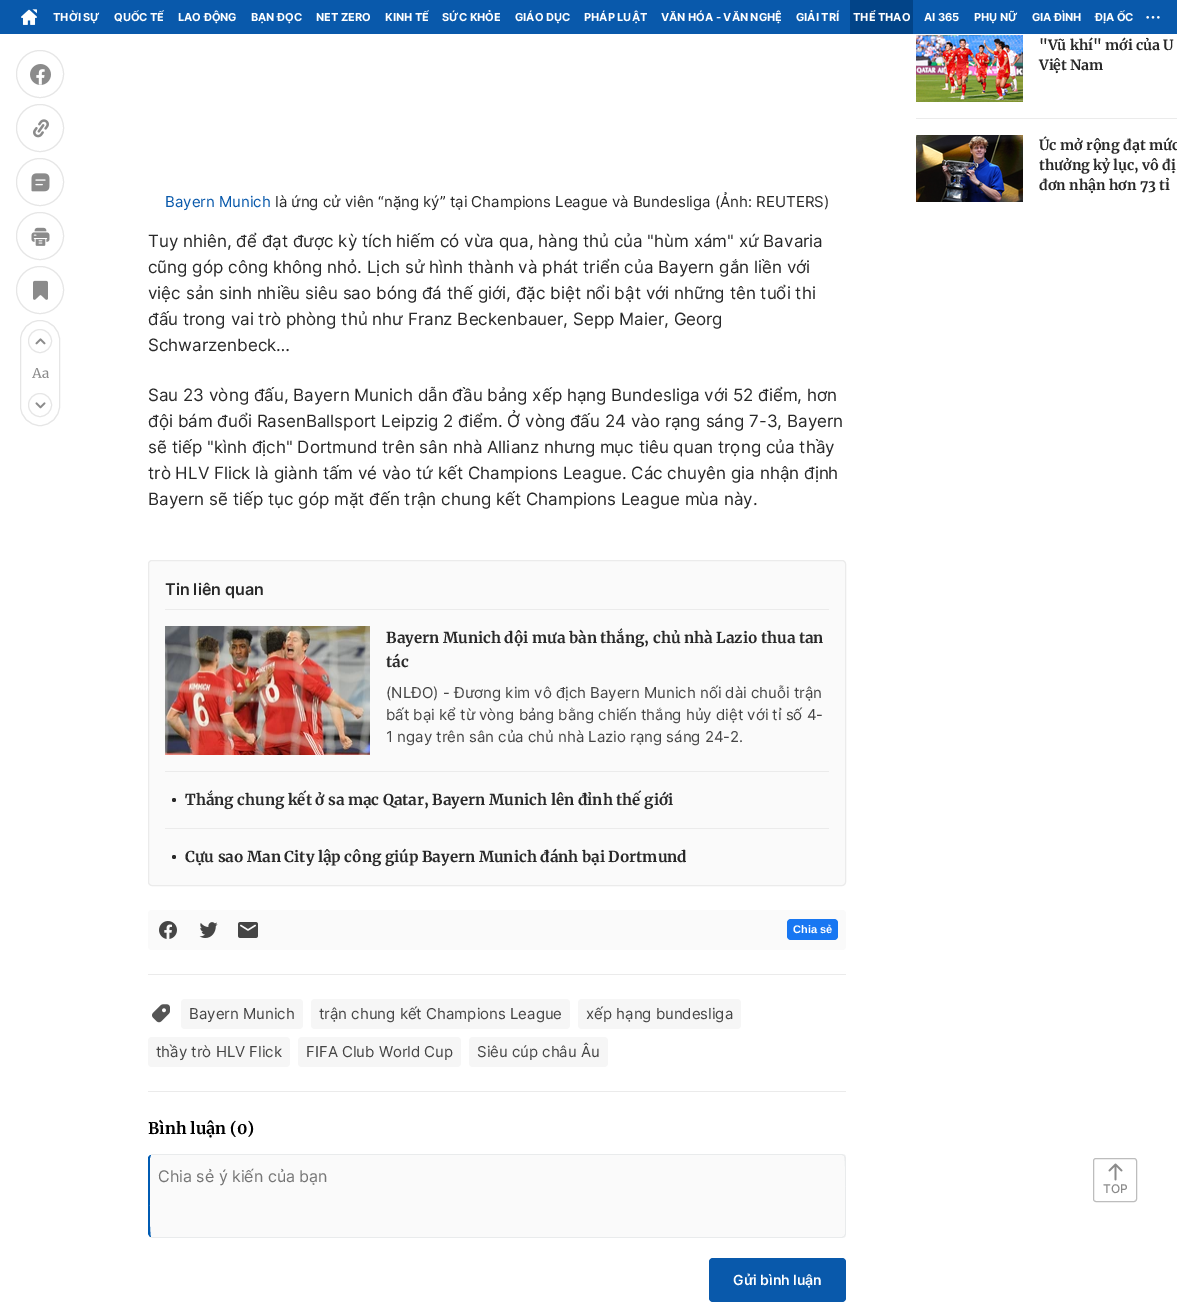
%!PS
<< /PageSize [1177 1302] >> setpagedevice
/rgb { dup -16 bitshift 255 div exch dup -8 bitshift 255 and 255 div exch 255 and 255 div setrgbcolor } def
/font { [ exch dup neg 0 0 3 -1 roll 0 0 ] selectfont } def
/text { moveto show } def
/circle { newpath 0 360 arc closepath } def
/roundrect { 5 dict begin { /r /h /w /y /x } { exch def } forall
  x r add y moveto x w add y 2 copy h add r arct x w add y h add x 1 index r arct
  x y h add x y r arct x y 2 copy exch w add exch r arct closepath end } def
/picture { 5 dict begin { /h /w /y /x /name } { exch def } forall
  gsave x y translate w h scale
  w h 8 [w 0 0 h 0 0] name (r) file false 3 colorimage grestore end } def
0 1302 translate 1 -1 scale
4 setmiterlimit
/s1 { /Inter-Bold 11 font 16#FFFFFF rgb } def
/s2 { /Merriweather-Bold 14 font 16#292929 rgb } def
/s3 { /Inter-Regular 15 font 16#0959AB rgb } def
/s4 { /Inter-Regular 15 font 16#292929 rgb } def
/s5 { /Inter-Regular 17 font 16#292929 rgb } def
/s6 { /Inter-SemiBold 16 font 16#292929 rgb } def
/s7 { /Merriweather-Bold 15 font 16#292929 rgb } def
/s8 { /Inter-Regular 15 font 16#454545 rgb } def
/s9 { /LiberationSans-Bold 11 font 16#FFFFFF rgb } def
/s10 { /Merriweather-Bold 16 font 16#000000 rgb } def
/s11 { /Inter-Regular 16 font 16#757575 rgb } def
/s12 { /Inter-SemiBold 14 font 16#FFFFFF rgb } def
/s13 { /Inter-Medium 12 font 16#8B8B8B rgb } def
16#FFFFFF rgb
0 0 1177 1302 rectfill
16#0959AB rgb
0 0 1177 34 rectfill
(pic1.raw) 21 9 16 16 picture
s1
(THỜI SỰ) 53 21 text
(QUỐC TẾ) 114 21 text
(LAO ĐỘNG) 178 21 text
(BẠN ĐỌC) 251 21 text
(NET ZERO) 316 21 text
(KINH TẾ) 385 21 text
(SỨC KHỎE) 442 21 text
(GIÁO DỤC) 515 21 text
(PHÁP LUẬT) 584 21 text
(VĂN HÓA - VĂN NGHỆ) 661 21 text
(GIẢI TRÍ) 796 21 text
16#024488 rgb
850 0 63 34 rectfill
s1
(THỂ THAO) 853 21 text
(AI 365) 924 21 text
(PHỤ NỮ) 974 21 text
(GIA ĐÌNH) 1032 21 text
(ĐỊA ỐC) 1095 21 text
(pic2.raw) 1146 16 14 3 picture
16#E6E6E6 rgb
40 74 23.5 circle stroke
(pic3.raw) 30 64 21 21 picture
40 128 23.5 circle stroke
(pic4.raw) 33 119 16 19 picture
40 182 23.5 circle stroke
(pic5.raw) 31 173 19 19 picture
40 236 23.5 circle stroke
(pic6.raw) 31 227 19 19 picture
40 290 23.5 circle stroke
(pic7.raw) 33 280 15 20 picture
20.5 320.5 39 105 19.5 roundrect stroke
40 341 11.5 circle stroke
(pic8.raw) 35 338 11 7 picture
(pic9.raw) 32 368 17 10 picture
40 405 11.5 circle stroke
(pic10.raw) 35 402 11 7 picture
16#EBEBEB rgb
916 118 261 1 rectfill
(pic11.raw) 916 35 107 67 picture
s2
("Vũ khí" mới của U) 1039 50 text
(Việt Nam) 1039 70 text
(pic12.raw) 916 135 107 67 picture
(Úc mở rộng đạt mức) 1039 150 text
(thưởng kỷ lục, vô đị) 1039 170 text
(đơn nhận hơn 73 tỉ) 1039 190 text
s3
(Bayern Munich) 165 207 text
s4
(là ứng cử viên “nặng ký” tại Champions League và Bundesliga \(Ảnh: REUTERS\)) 275 207 text
s5
(Tuy nhiên, để đạt được kỳ tích hiếm có vừa qua, hàng thủ của "hùm xám" xứ Bavaria) 148 247 text
(cũng góp công không nhỏ. Lịch sử hình thành và phát triển của Bayern gắn liền với) 148 273 text
(việc sản sinh nhiều siêu sao bóng đá thế giới, đặc biệt nổi bật với những tên tuổi thi) 148 299 text
(đấu trong vai trò phòng thủ như Franz Beckenbauer, Sepp Maier, Georg) 148 325 text
(Schwarzenbeck…) 148 351 text
(Sau 23 vòng đấu, Bayern Munich dẫn đầu bảng xếp hạng Bundesliga với 52 điểm, hơn) 148 401 text
(đội bám đuổi RasenBallsport Leipzig 2 điểm. Ở vòng đấu 24 vào rạng sáng 7-3, Bayern) 148 427 text
(sẽ tiếp "kình địch" Dortmund trên sân nhà Allianz nhưng mục tiêu quan trọng của thầy) 148 453 text
(trò HLV Flick là giành tấm vé vào tứ kết Champions League. Các chuyên gia nhận định) 148 479 text
(Bayern sẽ tiếp tục góp mặt đến trận chung kết Champions League mùa này.) 148 505 text
16#FAFAFA rgb
148.5 560.5 697 325 3.5 roundrect gsave fill grestore
16#EBEBEB rgb
stroke
165 609 664 1 rectfill
s6
(Tin liên quan) 165 595 text
(pic13.raw) 165 626 205 129 picture
s7
(Bayern Munich dội mưa bàn thắng, chủ nhà Lazio thua tan) 386 643 text
(tác) 386 667 text
s8
(\(NLĐO\) - Đương kim vô địch Bayern Munich nối dài chuỗi trận) 386 698 text
(bất bại kể từ vòng bảng bằng chiến thắng hủy diệt với tỉ số 4-) 386 720 text
(1 ngay trên sân của chủ nhà Lazio rạng sáng 24-2.) 386 742 text
16#EBEBEB rgb
165 771 664 1 rectfill
16#292929 rgb
174 800 2 circle fill
s7
(Thắng chung kết ở sa mạc Qatar, Bayern Munich lên đỉnh thế giới) 185 805 text
16#EBEBEB rgb
165 828 664 1 rectfill
16#292929 rgb
174 857 2 circle fill
(Cựu sao Man City lập công giúp Bayern Munich đánh bại Dortmund) 185 862 text
16#FAFAFA rgb
148 910 698 40 4 roundrect fill
(pic14.raw) 159 921 18 18 picture
(pic15.raw) 199 922 19 16 picture
(pic16.raw) 238 922 20 16 picture
16#1877F2 rgb
787 919 51 21 4 roundrect fill
s9
(Chia sẻ) 793 933 text
16#EBEBEB rgb
148 974 698 1 rectfill
148 1091 698 1 rectfill
(pic17.raw) 152 1004 18 19 picture
16#F6F6F6 rgb
181 999 122 30 4 roundrect fill
s8
(Bayern Munich) 189 1019 text
16#F6F6F6 rgb
311 999 259 30 4 roundrect fill
s8
(trận chung kết Champions League) 319 1019 text
16#F6F6F6 rgb
578 999 163 30 4 roundrect fill
s8
(xếp hạng bundesliga) 586 1019 text
16#F6F6F6 rgb
148 1037 142 30 4 roundrect fill
s8
(thầy trò HLV Flick) 156 1057 text
16#F6F6F6 rgb
298 1037 163 30 4 roundrect fill
s8
(FIFA Club World Cup) 306 1057 text
16#F6F6F6 rgb
469 1037 139 30 4 roundrect fill
s8
(Siêu cúp châu Âu) 477 1057 text
s10
(Bình luận \(0\)) 148 1134 text
16#FAFAFA rgb
152 1155 moveto 842 1155 lineto 844 1155 845 1156 845 1158 curveto 845 1234 lineto 845 1236 844 1237 842 1237 curveto 152 1237 lineto 151 1237 150 1236 150 1234 curveto 150 1158 lineto 150 1156 151 1155 152 1155 curveto closepath fill
16#E9EBEC rgb
152 1154 moveto 150 1155 lineto 151 1155 lineto 152 1155 lineto 842 1155 lineto 844 1156 lineto 845 1155 lineto 842 1154 lineto closepath fill
846 1234 moveto 846 1158 lineto 845 1155 lineto 844 1156 lineto 846 1158 845 1214 845 1221 curveto 845 1234 lineto 844 1236 lineto 845 1237 lineto closepath fill
152 1238 moveto 842 1238 lineto 845 1237 lineto 844 1236 lineto 842 1237 lineto 152 1237 lineto 151 1237 lineto 150 1237 lineto closepath fill
16#005BB2 rgb
148 1158 moveto 148 1234 lineto 150 1237 lineto 151 1237 lineto 149 1235 150 1178 150 1171 curveto 150 1158 lineto 151 1155 lineto 150 1155 lineto 149 1156 148 1157 148 1158 curveto closepath fill
s11
(Chia sẻ ý kiến của bạn) 158 1182 text
16#0959AB rgb
709 1258 137 44 4 roundrect fill
s12
(Gửi bình luận) 733 1285 text
16#BDBDBD rgb
1093.5 1158.5 43 43 2.5 roundrect stroke
(pic18.raw) 1108 1163 15 18 picture
s13
(TOP) 1103 1193 text
showpage
